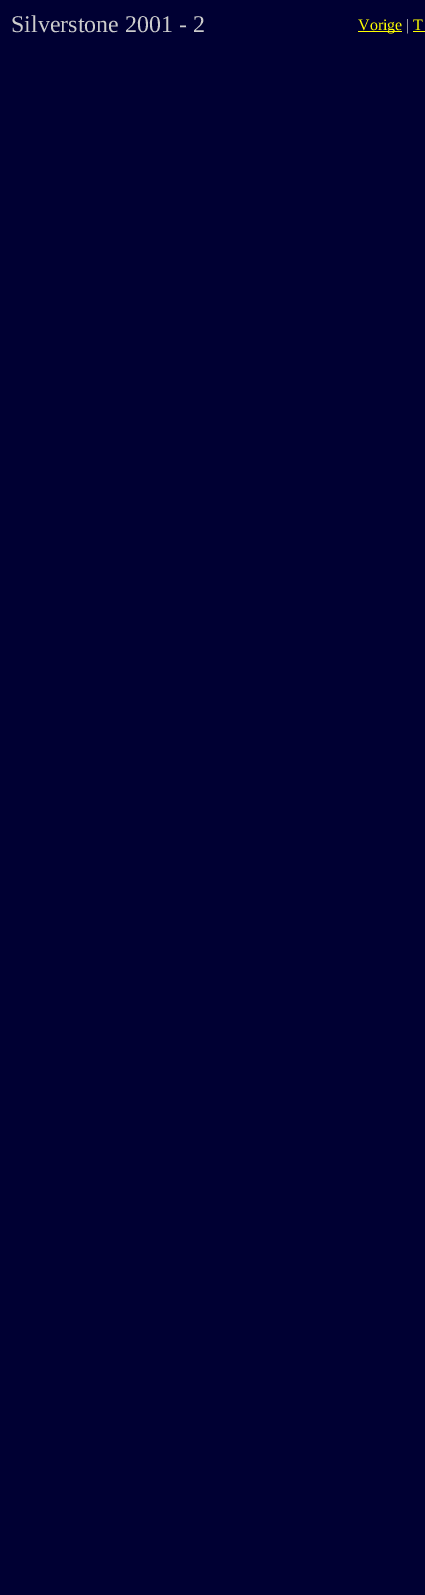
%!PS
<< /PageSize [425 1595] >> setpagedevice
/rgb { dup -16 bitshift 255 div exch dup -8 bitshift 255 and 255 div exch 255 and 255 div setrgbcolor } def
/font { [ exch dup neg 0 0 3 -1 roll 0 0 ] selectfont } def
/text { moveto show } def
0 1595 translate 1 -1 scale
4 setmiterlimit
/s1 { /LiberationSerif-Regular 24 font 16#CCCCCC rgb } def
/s2 { /LiberationSerif-Regular 16 font 16#FFFF00 rgb } def
/s3 { /LiberationSerif-Regular 16 font 16#CCCCCC rgb } def
16#000033 rgb
0 0 425 1595 rectfill
s1
(Silverstone 2001 - 2) 11 32 text
16#FFFF00 rgb
358 31 44 1 rectfill
s2
(Vorige) 358 30 text
s3
(|) 406 30 text
s2
(T) 413 30 text
413 31 12 1 rectfill
showpage
